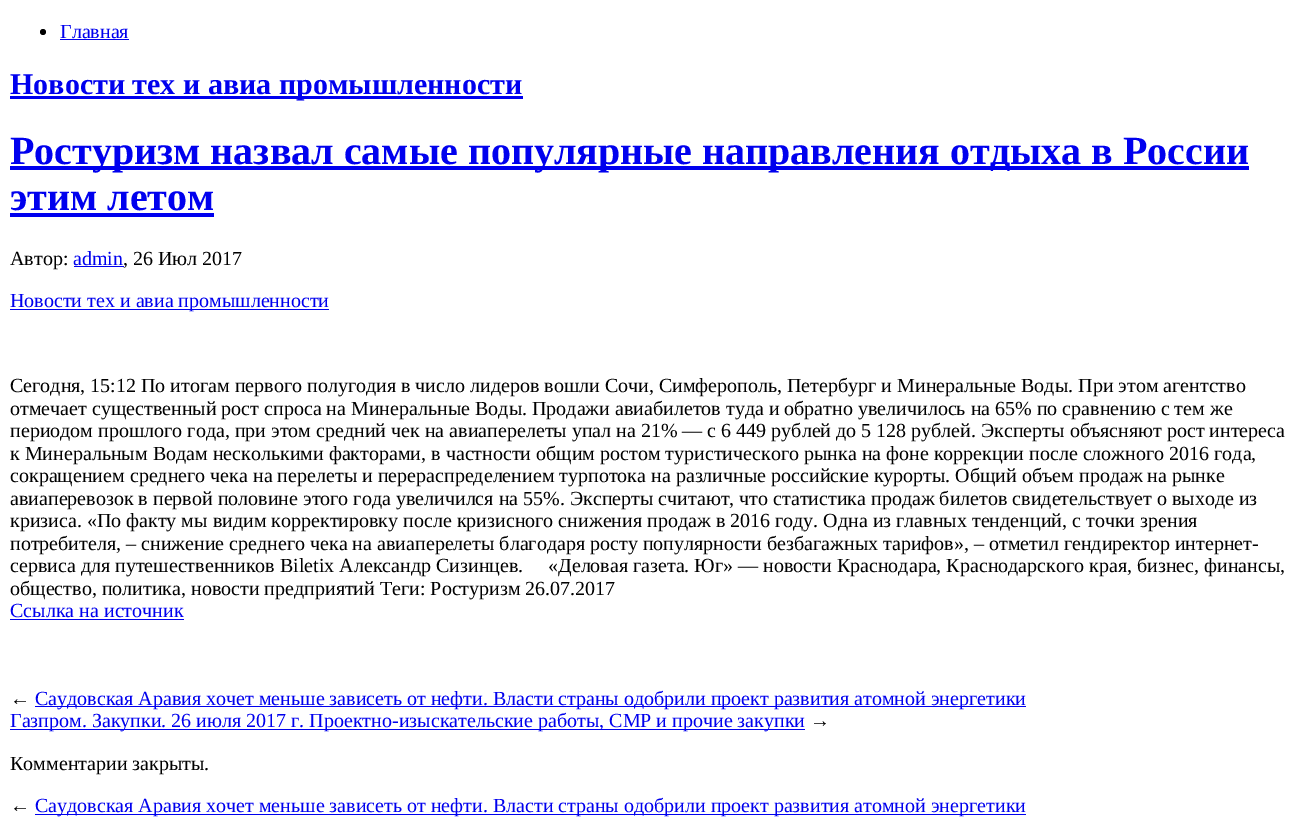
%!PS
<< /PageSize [1296 828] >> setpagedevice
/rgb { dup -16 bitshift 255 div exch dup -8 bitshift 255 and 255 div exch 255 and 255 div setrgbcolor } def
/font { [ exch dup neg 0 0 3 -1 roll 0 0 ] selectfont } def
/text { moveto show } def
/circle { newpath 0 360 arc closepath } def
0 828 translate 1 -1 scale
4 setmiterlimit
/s1 { /LiberationSerif-Regular 20 font 16#0000EE rgb } def
/s2 { /LiberationSerif-Bold 30 font 16#0000EE rgb } def
/s3 { /LiberationSerif-Bold 40 font 16#0000EE rgb } def
/s4 { /LiberationSerif-Regular 20 font 16#000000 rgb } def
16#FFFFFF rgb
0 0 1296 828 rectfill
16#000000 rgb
43 32 3 circle fill
s1
(Главная) 60 38 text
60 39 69 1 rectfill
10 96 513 3 rectfill
s2
(Новости тех и авиа промышленности) 10 94 text
10 166 1239 4 rectfill
s3
(Ростуризм назвал самые популярные направления отдыха в России) 10 164 text
(этим летом) 10 210 text
10 213 204 4 rectfill
s4
(Автор:) 10 265 text
s1
(admin) 73 265 text
74 266 50 1 rectfill
s4
(, 26 Июл 2017) 123 265 text
16#0000EE rgb
10 309 319 1 rectfill
(Новости тех и авиа промышленности) 10 307 text
s4
(Сегодня, 15:12 По итогам первого полугодия в число лидеров вошли Сочи, Симферополь, Петербург и Минеральные Воды. При этом агентство) 10 392 text
(отмечает существенный рост спроса на Минеральные Воды. Продажи авиабилетов туда и обратно увеличилось на 65% по сравнению с тем же) 10 415 text
(периодом прошлого года, при этом средний чек на авиаперелеты упал на 21% — с 6 449 рублей до 5 128 рублей. Эксперты объясняют рост интереса) 10 437 text
(к Минеральным Водам несколькими факторами, в частности общим ростом туристического рынка на фоне коррекции после сложного 2016 года,) 10 460 text
(сокращением среднего чека на перелеты и перераспределением турпотока на различные российские курорты. Общий объем продаж на рынке) 10 482 text
(авиаперевозок в первой половине этого года увеличился на 55%. Эксперты считают, что статистика продаж билетов свидетельствует о выходе из) 10 505 text
(кризиса. «По факту мы видим корректировку после кризисного снижения продаж в 2016 году. Одна из главных тенденций, с точки зрения) 10 527 text
(потребителя, – снижение среднего чека на авиаперелеты благодаря росту популярности безбагажных тарифов», – отметил гендиректор интернет-) 10 550 text
(сервиса для путешественников Biletix Александр Сизинцев.) 10 572 text
(«Деловая газета. Юг» — новости Краснодара, Краснодарского края, бизнес, финансы,) 548 572 text
(общество, политика, новости предприятий Теги: Ростуризм 26.07.2017) 10 595 text
s1
(Ссылка на источник) 10 617 text
10 619 174 1 rectfill
s4
(←) 10 705 text
16#0000EE rgb
35 706 991 1 rectfill
(Саудовская Аравия хочет меньше зависеть от нефти. Власти страны одобрили проект развития атомной энергетики) 35 705 text
10 729 795 1 rectfill
(Газпром. Закупки. 26 июля 2017 г. Проектно-изыскательские работы, СМР и прочие закупки) 10 727 text
s4
(→) 810 727 text
(Комментарии закрыты.) 10 770 text
(←) 10 812 text
16#0000EE rgb
35 814 991 1 rectfill
(Саудовская Аравия хочет меньше зависеть от нефти. Власти страны одобрили проект развития атомной энергетики) 35 812 text
showpage
